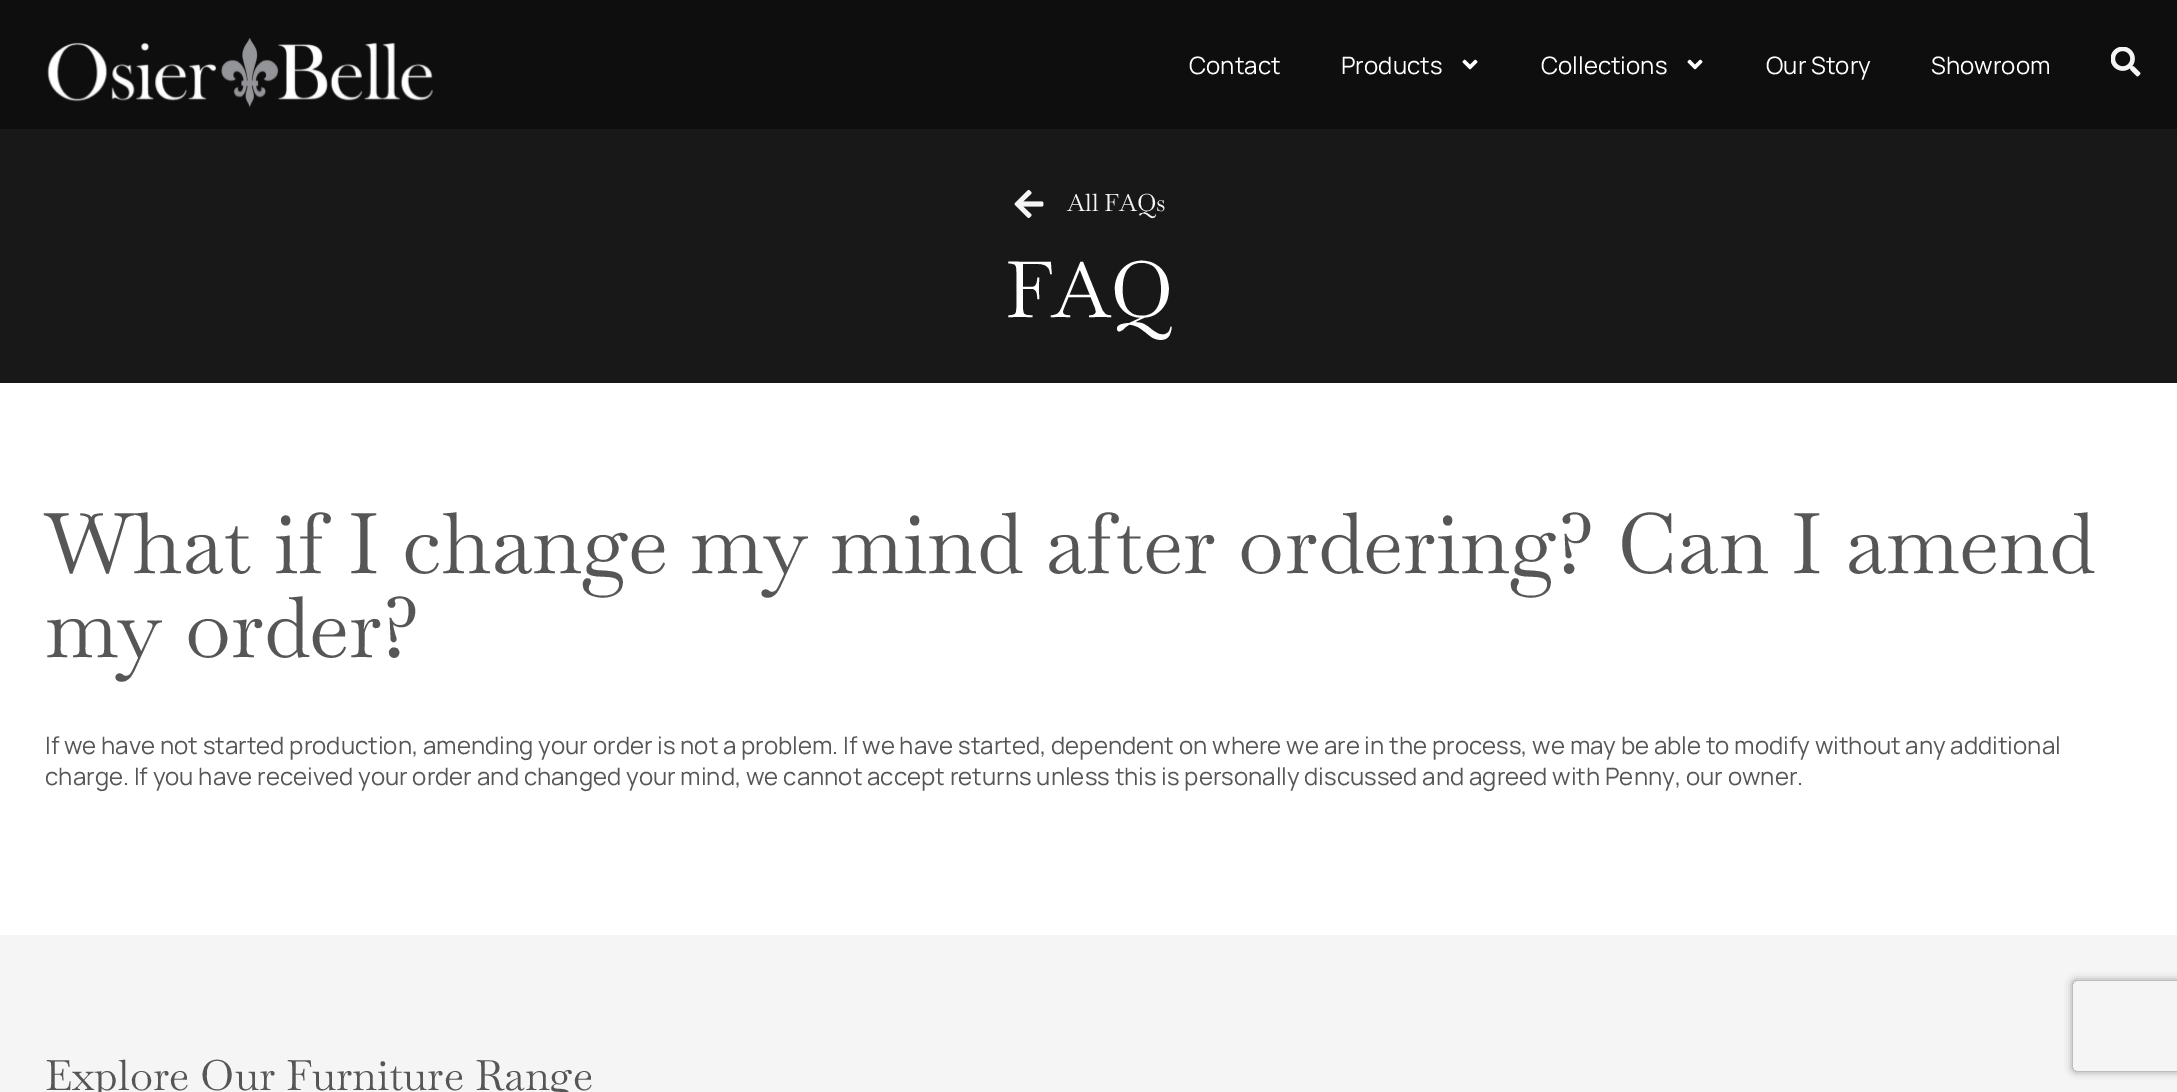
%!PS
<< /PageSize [2177 1092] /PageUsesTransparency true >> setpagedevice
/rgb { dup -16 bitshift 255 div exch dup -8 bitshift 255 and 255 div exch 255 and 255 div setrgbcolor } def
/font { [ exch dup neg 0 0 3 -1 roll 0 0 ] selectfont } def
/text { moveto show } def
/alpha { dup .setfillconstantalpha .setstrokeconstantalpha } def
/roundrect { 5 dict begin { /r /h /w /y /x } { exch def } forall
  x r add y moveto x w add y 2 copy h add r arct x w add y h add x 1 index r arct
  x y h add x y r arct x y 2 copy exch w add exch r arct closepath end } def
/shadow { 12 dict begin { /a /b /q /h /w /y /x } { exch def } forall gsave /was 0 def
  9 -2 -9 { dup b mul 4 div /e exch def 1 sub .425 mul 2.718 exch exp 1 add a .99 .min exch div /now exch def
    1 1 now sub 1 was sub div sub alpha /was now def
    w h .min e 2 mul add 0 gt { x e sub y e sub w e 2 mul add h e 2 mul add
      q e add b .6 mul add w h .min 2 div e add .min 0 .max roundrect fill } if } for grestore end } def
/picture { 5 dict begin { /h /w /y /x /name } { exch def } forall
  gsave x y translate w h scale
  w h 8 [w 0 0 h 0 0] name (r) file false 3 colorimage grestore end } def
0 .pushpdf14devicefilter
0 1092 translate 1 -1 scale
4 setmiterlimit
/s1 { /Manrope-Regular 24 font 16#FFFFFF rgb } def
/s2 { /Baskervville-Regular 24 font 16#F5F5F5 rgb } def
/s3 { /Baskervville-Regular 78 font 16#FFFFFF rgb } def
/s4 { /Baskervville-Regular 84 font 16#565656 rgb } def
/s5 { /Manrope-Regular 24 font 16#565656 rgb } def
/s6 { /Baskervville-Regular 42 font 16#565656 rgb } def
16#FFFFFF rgb
0 0 2177 1092 rectfill
16#0E0E0E rgb
0 0 2177 129 rectfill
(pic1.raw) 47 38 386 70 picture
s1
(Contact) 1189 74 text
(Products) 1341 74 text
(pic2.raw) 1462 59 16 11 picture
(Collections) 1541 74 text
(pic2.raw) 1687 59 16 11 picture
(Our Story) 1766 74 text
(Showroom) 1931 74 text
(pic3.raw) 2111 47 30 30 picture
16#181818 rgb
0 129 2177 254 rectfill
(pic4.raw) 1014 189 30 30 picture
s2
(All FAQs) 1067 211 text
s3
(FAQ) 1005 317 text
s4
(What if I change my mind after ordering? Can I amend) 45 573 text
(my order?) 45 657 text
s5
(If we have not started production, amending your order is not a problem. If we have started, dependent on where we are in the process, we may be able to modify without any additional) 45 754 text
(charge. If you have received your order and changed your mind, we cannot accept returns unless this is personally discussed and agreed with Penny, our owner.) 45 785 text
16#F5F5F5 rgb
0 935 2177 157 rectfill
s6
(Explore Our Furniture Range) 45 1090 text
gsave
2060 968 moveto 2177 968 lineto 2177 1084 lineto 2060 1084 lineto closepath 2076 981 moveto 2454 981 lineto 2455.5 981 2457 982.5 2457 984 curveto 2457 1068 lineto 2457 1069.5 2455.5 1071 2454 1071 curveto 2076 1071 lineto 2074.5 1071 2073 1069.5 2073 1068 curveto 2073 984 lineto 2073 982.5 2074.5 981 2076 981 curveto closepath eoclip newpath
16#808080 rgb
2073 981 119 90 3 4 1 shadow
grestore
.poppdf14devicefilter showpage
